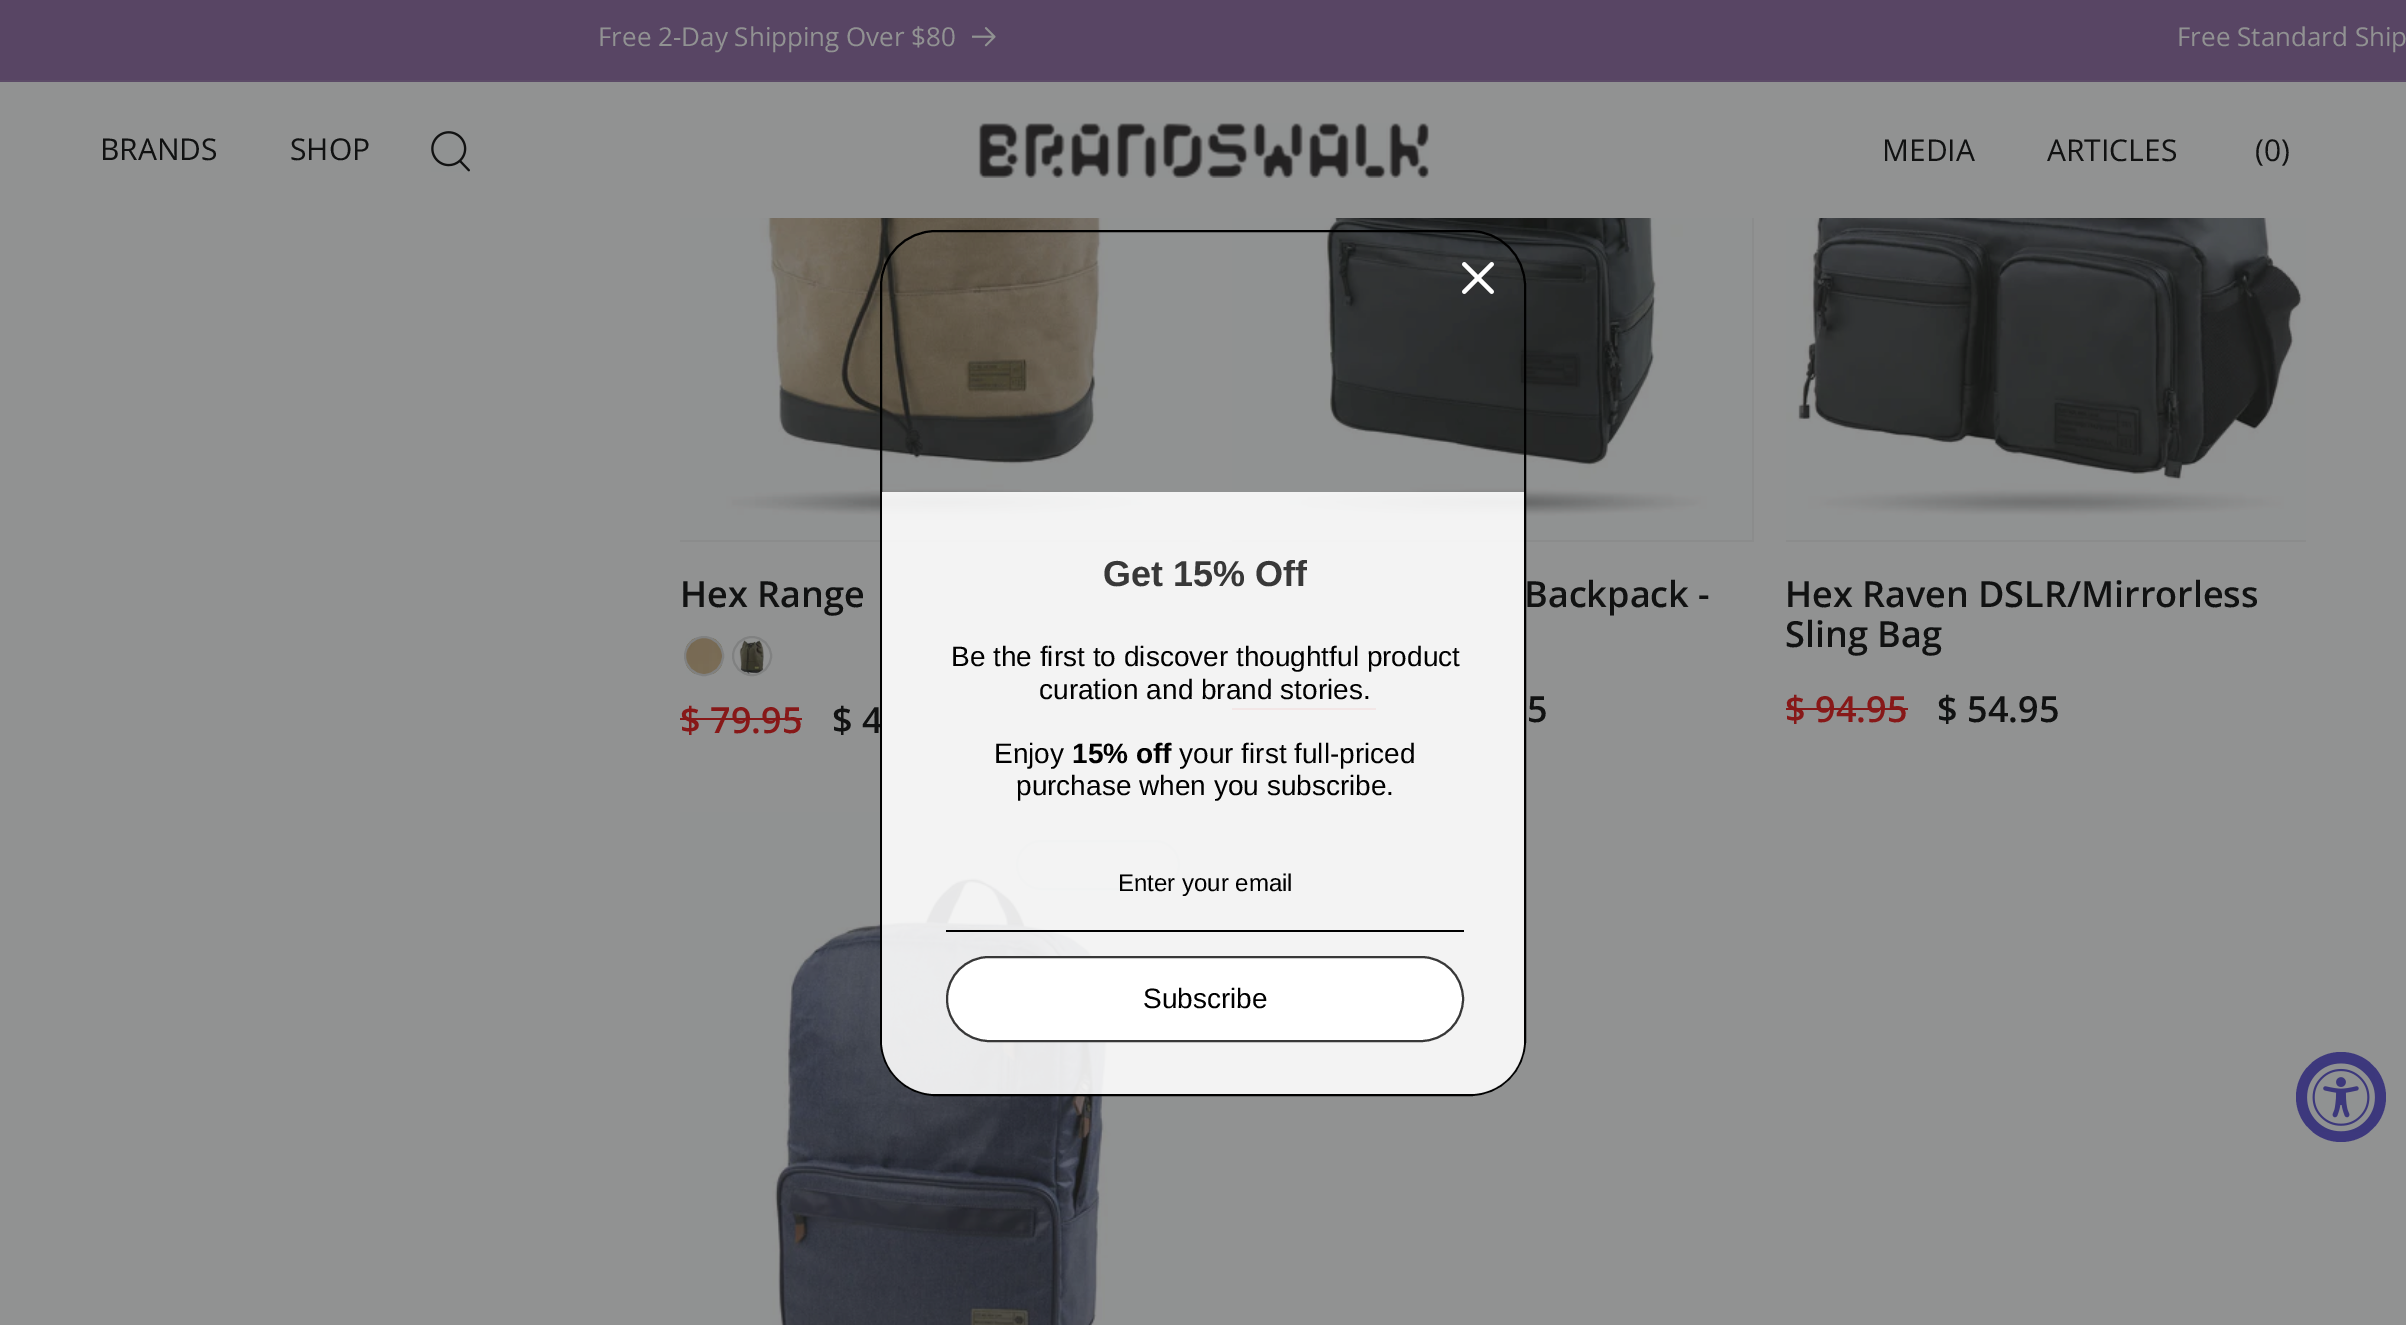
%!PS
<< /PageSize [2406 1325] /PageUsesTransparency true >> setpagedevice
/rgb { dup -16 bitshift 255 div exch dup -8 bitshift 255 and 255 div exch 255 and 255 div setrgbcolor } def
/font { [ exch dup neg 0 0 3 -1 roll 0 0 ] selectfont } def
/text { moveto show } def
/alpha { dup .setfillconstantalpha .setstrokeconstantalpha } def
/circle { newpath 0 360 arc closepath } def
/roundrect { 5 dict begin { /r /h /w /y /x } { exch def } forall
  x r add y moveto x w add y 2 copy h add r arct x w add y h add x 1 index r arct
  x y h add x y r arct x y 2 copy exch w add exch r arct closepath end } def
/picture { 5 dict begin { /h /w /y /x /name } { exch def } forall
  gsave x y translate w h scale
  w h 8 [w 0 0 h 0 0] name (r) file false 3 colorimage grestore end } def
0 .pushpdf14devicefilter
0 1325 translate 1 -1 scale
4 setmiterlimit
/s1 { /OpenSans-Regular 26 font 16#919292 rgb } def
/s2 { /OpenSans-Regular 30 font 16#111212 rgb } def
/s3 { /OpenSans-SemiBold 36 font 16#111212 rgb } def
/s4 { /LiberationSans-Bold 36 font 16#383838 rgb } def
/s5 { /LiberationSans-Regular 28 font 16#000000 rgb } def
/s6 { /LiberationSans-Bold 28 font 16#000000 rgb } def
/s7 { /LiberationSans-Regular 24 font 16#000000 rgb } def
/s8 { /OpenSans-SemiBold 36 font 16#871818 rgb } def
16#919292 rgb
0 0 2406 1325 rectfill
16#584564 rgb
0 0 2406 80 rectfill
16#5C4B67 rgb
0 80 2406 2 rectfill
s1
(Free 2-Day Shipping Over $80) 598 46 text
(pic1.raw) 972 27 24 20 picture
(Free Standard Ship) 2177 46 text
s2
(BRANDS) 100 160 text
(SHOP) 290 160 text
(pic2.raw) 431 131 39 41 picture
(pic3.raw) 978 123 451 55 picture
(MEDIA) 1882 161 text
(ARTICLES) 2047 161 text
(\(0\)) 2255 161 text
16#8B8C8C rgb
680 540 520 2 rectfill
(pic5.raw) 680 218 520 322 picture
s3
($ 4) 832 733 text
16#8B8C8C rgb
1232 218 522 324 rectfill
(pic8.raw) 1232 218 520 322 picture
16#871818 rgb
1232 708 144 2 rectfill
(pic10.raw) 680 812 520 513 picture
16#848585 rgb
2 setlinewidth
1017 841 162 48 24 roundrect stroke
16#000000 rgb
881 231 644 864 55 roundrect stroke
(pic4.raw) 1462 262 32 32 picture
0.89 alpha
16#FFFFFF rgb
882 492 moveto 1524 492 lineto 1524 1040 lineto 1524 1070 1500 1094 1470 1094 curveto 936 1094 lineto 906 1094 882 1070 882 1040 curveto closepath fill
1 alpha
s4
(Get 15% Off) 1103 586 text
s5
(Be the first to discover thoughtful product) 951 666 text
(curation and brand stories.) 1039 699 text
(Enjoy) 994 763 text
s6
(15% off) 1072 763 text
s5
(your first full-priced) 1179 763 text
(purchase when you subscribe.) 1016 795 text
946 930 518 2 rectfill
s7
(Enter your email) 1118 891 text
16#FFFFFF rgb
947 957 516 84 42 roundrect gsave fill grestore
16#383838 rgb
stroke
s5
(Subscribe) 1143 1008 text
s3
(Hex Range) 680 607 text
(pic6.raw) 686 638 36 36 picture
16#808181 rgb
704 656 19 circle stroke
(pic7.raw) 739 639 25 37 picture
752 656 19 circle stroke
s8
($ 79.95) 680 733 text
680 718 122 2 rectfill
s3
(Backpack -) 1524 607 text
(5) 1527 722 text
16#8B8C8C rgb
1786 540 520 2 rectfill
(pic9.raw) 1786 218 520 322 picture
s3
(Hex Raven DSLR/Mirrorless) 1785 607 text
(Sling Bag) 1785 647 text
s8
($ 94.95) 1785 722 text
1786 708 122 2 rectfill
s3
($ 54.95) 1937 722 text
16#3D387D rgb
2341 1097 45 circle fill
(pic11.raw) 2307 1063 68 69 picture
.poppdf14devicefilter showpage
